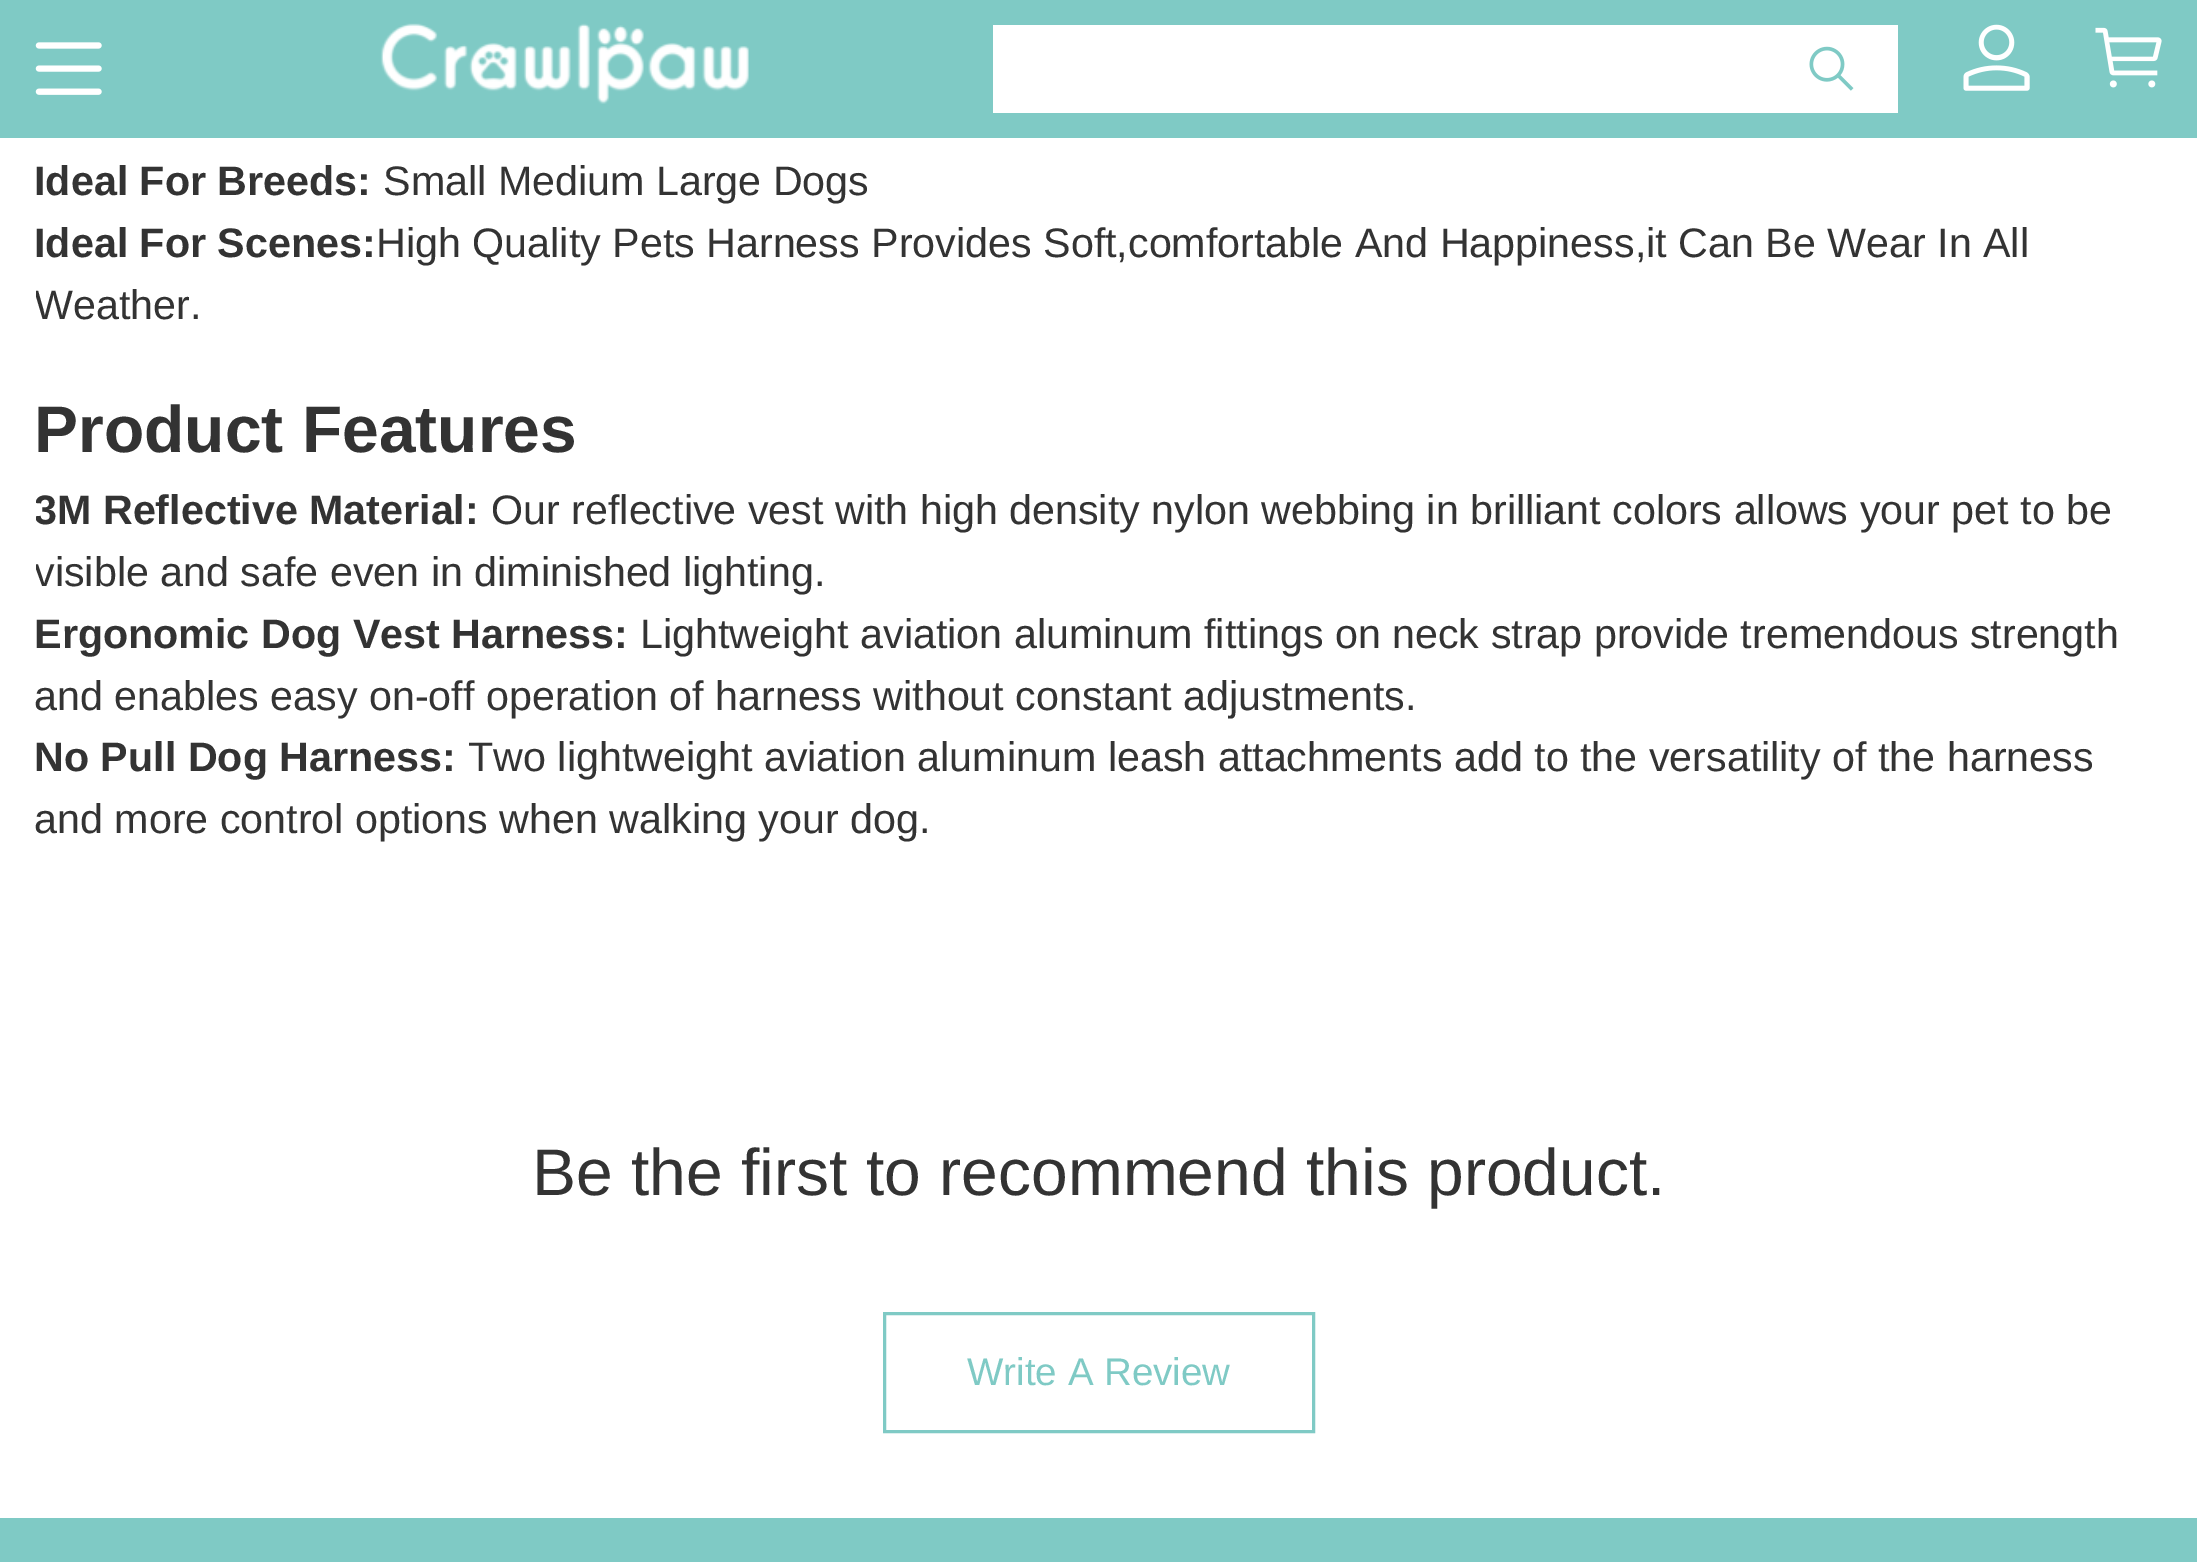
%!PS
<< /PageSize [2197 1562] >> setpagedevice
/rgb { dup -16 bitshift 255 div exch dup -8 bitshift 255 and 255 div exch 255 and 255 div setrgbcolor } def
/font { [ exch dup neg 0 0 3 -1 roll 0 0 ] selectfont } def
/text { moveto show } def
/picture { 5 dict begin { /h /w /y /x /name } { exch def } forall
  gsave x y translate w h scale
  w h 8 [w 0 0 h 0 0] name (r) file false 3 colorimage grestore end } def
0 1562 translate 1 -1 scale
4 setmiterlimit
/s1 { /LiberationSans-Bold 41.25 font 16#333333 rgb } def
/s2 { /LiberationSans-Regular 41.25 font 16#333333 rgb } def
/s3 { /LiberationSans-Bold 66 font 16#333333 rgb } def
/s4 { /LiberationSans-Regular 66 font 16#333333 rgb } def
/s5 { /LiberationSans-Regular 38.5 font 16#7FCAC5 rgb } def
16#FFFFFF rgb
0 0 2197 1562 rectfill
16#7FCAC5 rgb
0 0 2197 138 rectfill
(pic1.raw) 35 42 67 53 picture
(pic2.raw) 380 23 369 81 picture
16#FFFFFF rgb
993 25 905 88 rectfill
(pic3.raw) 1809 46 45 45 picture
(pic4.raw) 1963 24 67 67 picture
(pic5.raw) 2095 27 67 61 picture
s1
(Ideal For Breeds:) 34 195 text
s2
(Small Medium Large Dogs) 383 195 text
s1
(Ideal For Scenes:) 34 257 text
s2
(High Quality Pets Harness Provides Soft,comfortable And Happiness,it Can Be Wear In All) 376 257 text
gsave
36 0 2128 853 rectclip
(Weather.) 34 319 text
grestore
s3
(Product Features) 34 452 text
gsave
36 0 2128 853 rectclip
s1
(3M Reflective Material:) 34 524 text
grestore
s2
(Our reflective vest with high density nylon webbing in brilliant colors allows your pet to be) 491 524 text
gsave
36 0 2128 853 rectclip
(visible and safe even in diminished lighting.) 34 586 text
grestore
s1
(Ergonomic Dog Vest Harness:) 34 648 text
s2
(Lightweight aviation aluminum fittings on neck strap provide tremendous strength) 640 648 text
(and enables easy on-off operation of harness without constant adjustments.) 34 710 text
s1
(No Pull Dog Harness:) 34 771 text
s2
(Two lightweight aviation aluminum leash attachments add to the versatility of the harness) 468 771 text
(and more control options when walking your dog.) 34 833 text
s4
(Be the first to recommend this product.) 532 1195 text
16#7FCAC5 rgb
3 setlinewidth
884.5 1313.5 429 118 rectstroke
s5
(Write A Review) 967 1385 text
0 1518 2197 44 rectfill
showpage
